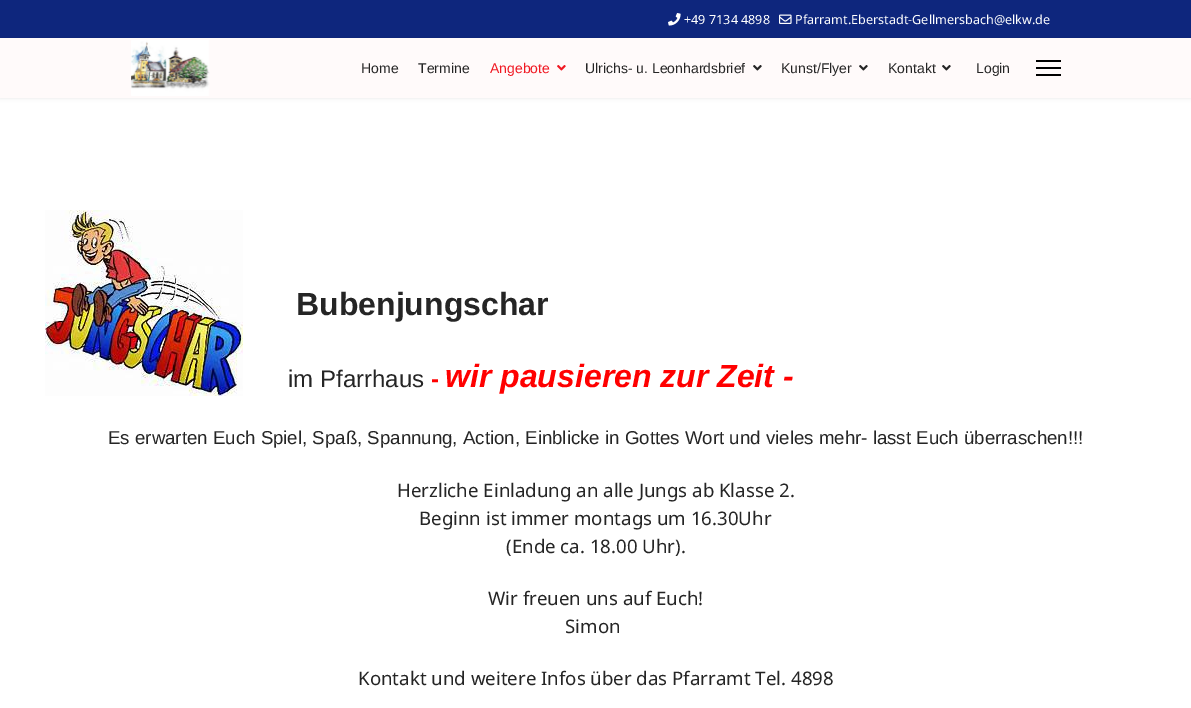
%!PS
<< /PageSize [1191 708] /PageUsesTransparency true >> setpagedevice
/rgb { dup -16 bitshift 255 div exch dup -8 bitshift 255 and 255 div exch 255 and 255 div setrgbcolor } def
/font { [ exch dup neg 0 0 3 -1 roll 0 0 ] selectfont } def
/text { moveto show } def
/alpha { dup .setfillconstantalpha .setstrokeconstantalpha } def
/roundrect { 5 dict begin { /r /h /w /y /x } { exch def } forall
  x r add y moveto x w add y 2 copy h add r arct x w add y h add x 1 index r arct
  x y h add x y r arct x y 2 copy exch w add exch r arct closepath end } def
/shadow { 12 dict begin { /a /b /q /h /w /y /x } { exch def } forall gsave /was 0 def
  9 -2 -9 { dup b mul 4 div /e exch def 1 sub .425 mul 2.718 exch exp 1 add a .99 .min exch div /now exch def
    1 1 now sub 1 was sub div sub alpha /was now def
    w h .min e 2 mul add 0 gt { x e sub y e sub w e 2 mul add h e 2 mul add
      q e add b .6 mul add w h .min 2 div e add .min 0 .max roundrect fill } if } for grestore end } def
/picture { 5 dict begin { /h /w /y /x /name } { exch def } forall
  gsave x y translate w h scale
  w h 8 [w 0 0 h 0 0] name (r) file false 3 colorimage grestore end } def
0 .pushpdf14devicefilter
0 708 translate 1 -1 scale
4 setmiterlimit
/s1 { /NotoSans-Regular 12.6 font 16#FFFFFF rgb } def
/s2 { /LiberationSans-Regular 14 font 16#252525 rgb } def
/s3 { /LiberationSans-Regular 14 font 16#F01822 rgb } def
/s4 { /LiberationSans-Bold 32 font 16#252525 rgb } def
/s5 { /LiberationSans-Regular 24 font 16#252525 rgb } def
/s6 { /LiberationSans-Bold 24 font 16#FF0000 rgb } def
/s7 { /LiberationSans-BoldItalic 32 font 16#FF0000 rgb } def
/s8 { /LiberationSans-Regular 18.67 font 16#252525 rgb } def
/s9 { /NotoSans-Regular 18.67 font 16#252525 rgb } def
16#FFFFFF rgb
0 0 1191 708 rectfill
16#0E267D rgb
0 0 1191 38 rectfill
(pic1.raw) 668 13 13 13 picture
s1
(+49 7134 4898) 684 24 text
(pic2.raw) 779 14 13 10 picture
(Pfarramt.Eberstadt-Gellmersbach@elkw.de) 795 24 text
16#000000 rgb
0 38 1191 60 0 2 0.1 shadow
16#FFFAFA rgb
0 38 1191 60 rectfill
(pic3.raw) 131 40 79 56 picture
s2
(Home) 361 73 text
(Termine) 418 73 text
s3
(Angebote) 490 73 text
(pic4.raw) 557 65 9 6 picture
s2
(Ulrichs- u. Leonhardsbrief) 585 73 text
(pic5.raw) 753 65 9 6 picture
(Kunst/Flyer) 781 73 text
(pic5.raw) 859 65 9 6 picture
(Kontakt) 888 73 text
(pic5.raw) 942 65 9 6 picture
(Login) 976 73 text
16#000000 rgb
1036 60 25 2 rectfill
1036 67 25 2 rectfill
1036 74 25 2 rectfill
(pic6.raw) 45 210 198 186 picture
s4
(Bubenjungschar) 296 315 text
s5
(im Pfarrhaus) 288 387 text
s6
(-) 431 387 text
s7
(wir pausieren zur Zeit -) 445 387 text
s8
(Es erwarten Euch Spiel, Spaß, Spannung, Action, Einblicke in Gottes Wort und vieles mehr- lasst Euch überraschen!!!) 108 444 text
s9
(Herzliche Einladung an alle Jungs ab Klasse 2.) 397 497 text
(Beginn ist immer montags um 16.30Uhr) 419 525 text
(\(Ende ca. 18.00 Uhr\).) 506 553 text
(Wir freuen uns auf Euch!) 488 605 text
(Simon) 565 633 text
(Kontakt und weitere Infos über das Pfarramt Tel. 4898) 358 685 text
.poppdf14devicefilter showpage
